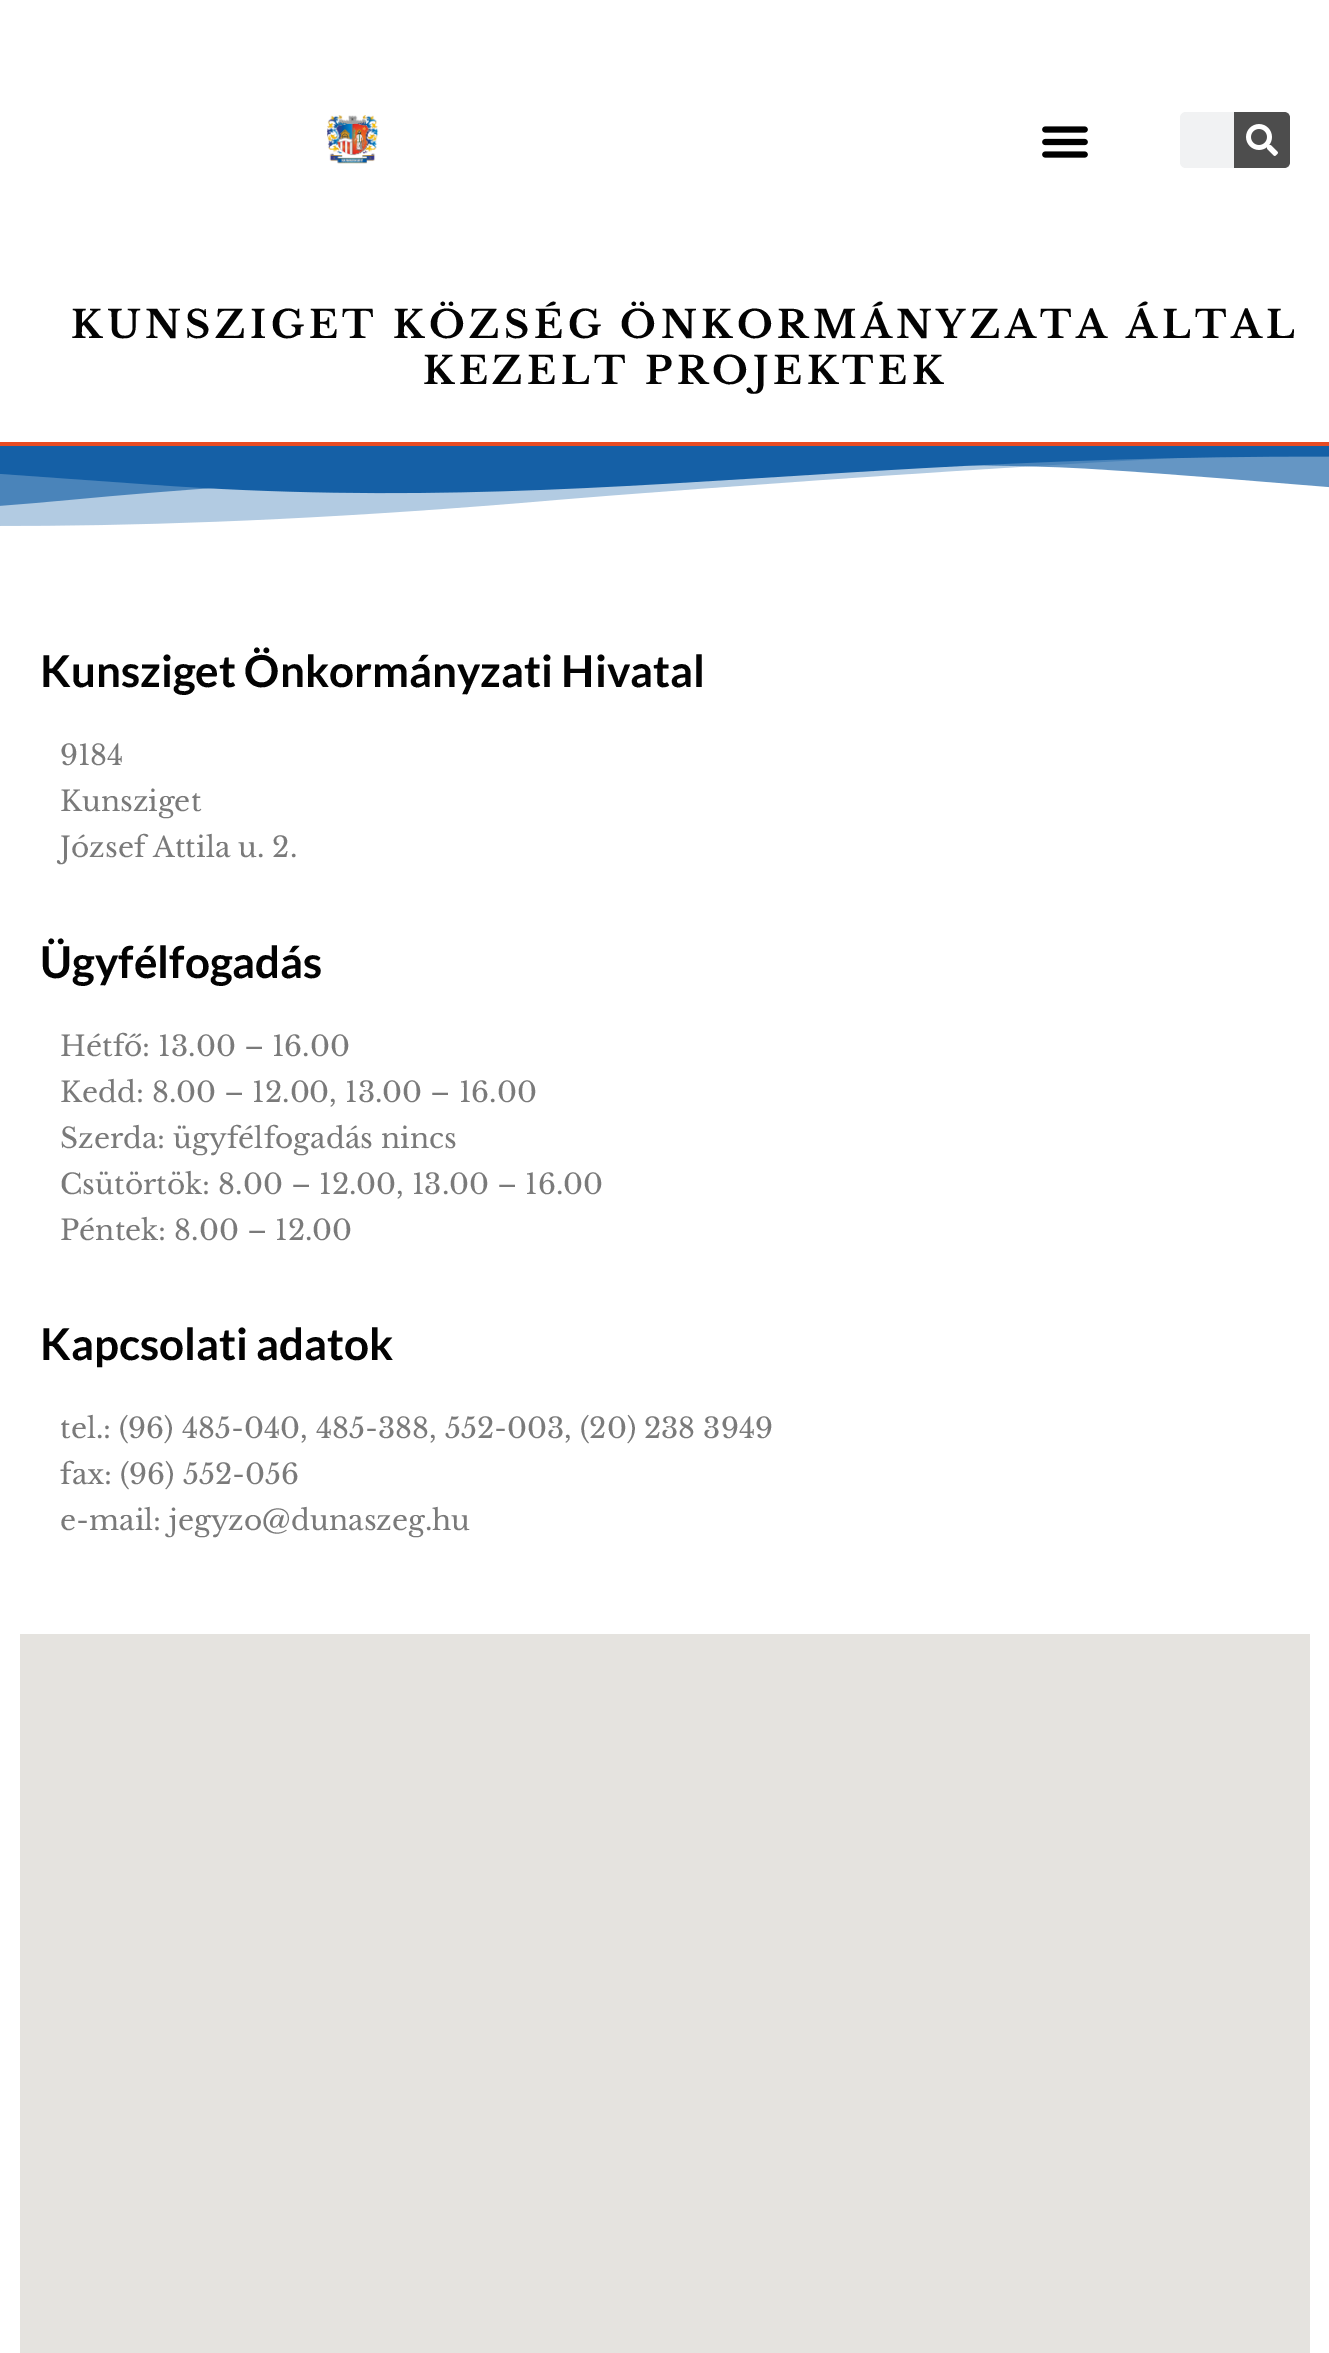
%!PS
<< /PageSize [1329 2353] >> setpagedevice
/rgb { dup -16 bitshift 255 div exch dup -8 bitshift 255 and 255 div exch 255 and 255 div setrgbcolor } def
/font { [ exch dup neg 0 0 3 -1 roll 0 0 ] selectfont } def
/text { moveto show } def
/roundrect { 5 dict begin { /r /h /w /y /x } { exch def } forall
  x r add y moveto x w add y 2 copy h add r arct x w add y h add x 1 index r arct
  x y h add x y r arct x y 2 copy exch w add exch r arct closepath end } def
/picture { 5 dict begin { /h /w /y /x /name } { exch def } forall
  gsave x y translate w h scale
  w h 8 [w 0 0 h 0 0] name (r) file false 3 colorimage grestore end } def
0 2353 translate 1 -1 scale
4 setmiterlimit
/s1 { /Lato-Bold 44 font 16#030303 rgb } def
/s2 { /LibreBaskerville-Regular 28 font 16#7A7A7A rgb } def
16#FFFFFF rgb
0 0 1329 2353 rectfill
(pic1.raw) 327 115 52 49 picture
(pic2.raw) 1042 126 46 32 picture
16#F1F2F3 rgb
1180 112 110 56 6 roundrect fill
16#4D4D4D rgb
1234 112 moveto 1284 112 lineto 1287.5 112 1290 114.5 1290 118 curveto 1290 162 lineto 1290 165.5 1287.5 168 1284 168 curveto 1234 168 lineto closepath fill
(pic3.raw) 1246 124 32 32 picture
16#E84C23 rgb
0 442 1329 4 rectfill
/LibreBaskerville-Bold 38 font
16#030303 rgb
71 338 moveto 4.6 0 (KUNSZIGET KÖZSÉG ÖNKORMÁNYZATA ÁLTAL) ashow
423 384 moveto 4.6 0 (KEZELT PROJEKTEK) ashow
(pic4.raw) 0 446 1329 80 picture
s1
(Kunsziget Önkormányzati Hivatal) 40 687 text
s2
(9184) 60 765 text
(Kunsziget) 60 811 text
(József Attila u. 2.) 60 857 text
s1
(Ügyfélfogadás) 40 978 text
s2
(Hétfő: 13.00 – 16.00) 60 1056 text
(Kedd: 8.00 – 12.00, 13.00 – 16.00) 60 1102 text
(Szerda: ügyfélfogadás nincs) 60 1148 text
(Csütörtök: 8.00 – 12.00, 13.00 – 16.00) 60 1194 text
(Péntek: 8.00 – 12.00) 60 1240 text
s1
(Kapcsolati adatok) 40 1360 text
s2
(tel.: \(96\) 485-040, 485-388, 552-003, \(20\) 238 3949) 60 1438 text
(fax: \(96\) 552-056) 60 1484 text
(e-mail: jegyzo@dunaszeg.hu) 60 1530 text
16#E5E3DF rgb
20 1634 1290 719 rectfill
showpage
